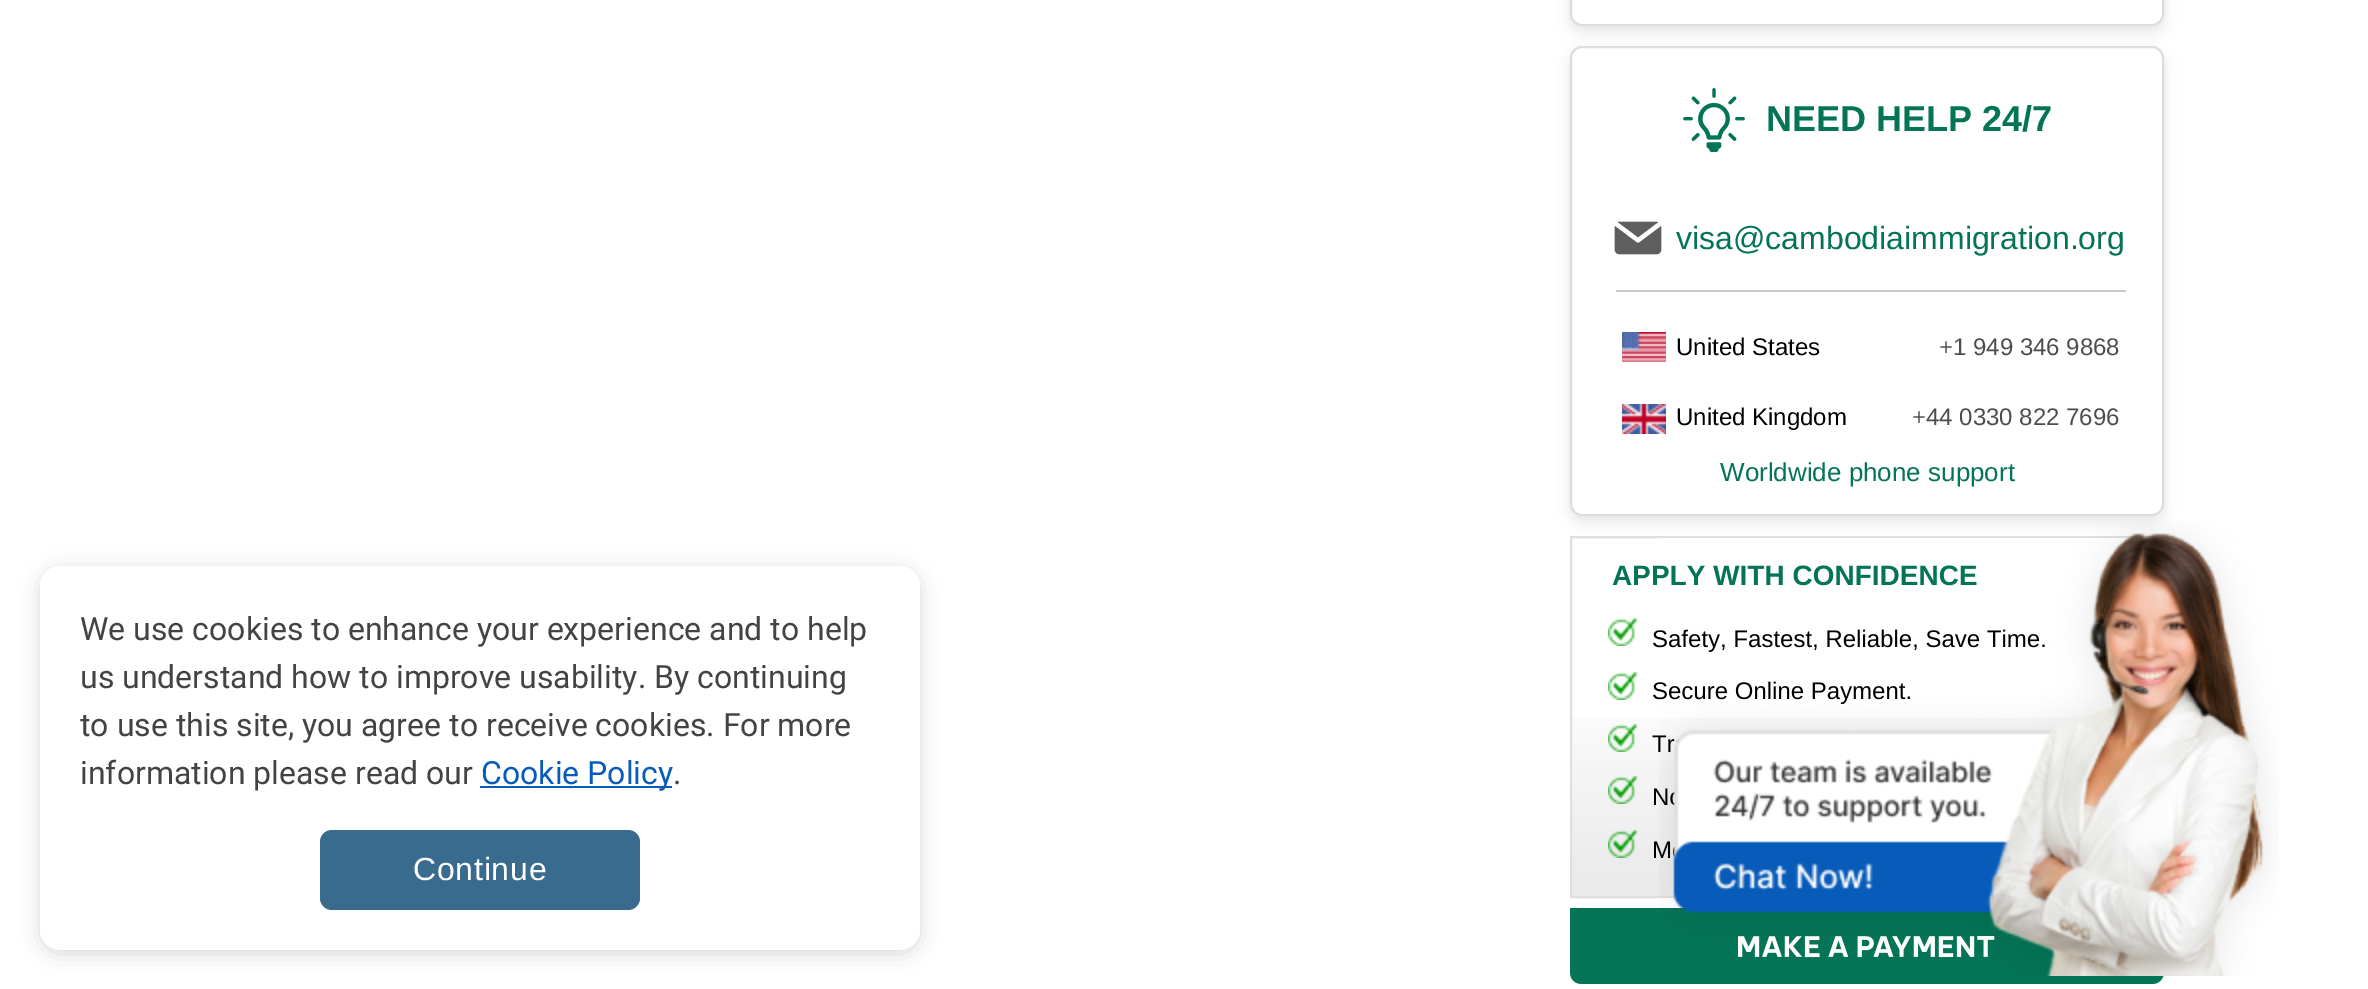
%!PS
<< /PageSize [2368 989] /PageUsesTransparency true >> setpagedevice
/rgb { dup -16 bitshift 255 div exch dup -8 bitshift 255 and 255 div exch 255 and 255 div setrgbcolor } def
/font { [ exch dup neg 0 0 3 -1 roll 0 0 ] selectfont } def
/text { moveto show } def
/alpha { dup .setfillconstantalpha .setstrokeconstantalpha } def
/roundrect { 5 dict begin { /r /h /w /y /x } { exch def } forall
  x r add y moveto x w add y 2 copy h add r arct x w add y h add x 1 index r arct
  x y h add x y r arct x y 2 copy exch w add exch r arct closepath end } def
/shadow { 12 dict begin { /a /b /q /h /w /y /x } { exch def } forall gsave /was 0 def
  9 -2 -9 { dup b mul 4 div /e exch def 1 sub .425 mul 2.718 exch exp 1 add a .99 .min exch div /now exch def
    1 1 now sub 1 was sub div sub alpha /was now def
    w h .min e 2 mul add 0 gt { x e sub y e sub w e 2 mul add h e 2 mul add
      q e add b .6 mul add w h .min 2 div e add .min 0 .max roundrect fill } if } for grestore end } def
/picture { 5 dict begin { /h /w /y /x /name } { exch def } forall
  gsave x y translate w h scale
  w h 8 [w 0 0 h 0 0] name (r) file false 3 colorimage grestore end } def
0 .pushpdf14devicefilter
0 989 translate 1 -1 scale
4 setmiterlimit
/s1 { /LiberationSans-Bold 36 font 16#047456 rgb } def
/s2 { /LiberationSans-Regular 32 font 16#047456 rgb } def
/s3 { /LiberationSans-Regular 24 font 16#000000 rgb } def
/s4 { /LiberationSans-Regular 24 font 16#4D4D4D rgb } def
/s5 { /LiberationSans-Regular 26 font 16#047456 rgb } def
/s6 { /LiberationSans-Bold 28 font 16#047456 rgb } def
/s7 { /Roboto-Regular 32 font 16#434343 rgb } def
/s8 { /Roboto-Regular 32 font 16#085BB9 rgb } def
16#FFFFFF rgb
0 0 2368 989 rectfill
16#000000 rgb
1570 -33 594 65 12 7 0.1 shadow
16#FFFFFF rgb
1571 -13 592 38 11 roundrect gsave fill grestore
16#DDDDDD rgb
2 setlinewidth
stroke
16#000000 rgb
1570 52 594 470 12 7 0.1 shadow
16#FFFFFF rgb
1571 47 592 468 11 roundrect gsave fill grestore
16#DDDDDD rgb
stroke
(pic1.raw) 1683 88 62 64 picture
s1
(NEED HELP 24/7) 1766 131 text
(pic2.raw) 1614 221 48 34 picture
s2
(visa@cambodiaimmigration.org) 1676 249 text
16#CDCCC9 rgb
1616 290 510 2 rectfill
(pic3.raw) 1622 332 44 30 picture
s3
(United States) 1676 355 text
s4
(+1 949 346 9868) 1939 355 text
(pic4.raw) 1622 404 44 30 picture
s3
(United Kingdom) 1676 425 text
s4
(+44 0330 822 7696) 1912 425 text
s5
(Worldwide phone support) 1720 481 text
(pic5.raw) 1572 718 519 178 picture
16#E0DFDD rgb
1571 537 592 360 rectstroke
s6
(APPLY WITH CONFIDENCE) 1612 585 text
(pic6.raw) 1608 618 30 28 picture
s3
(Safety, Fastest, Reliable, Save Time.) 1652 647 text
(pic6.raw) 1608 672 30 28 picture
(Secure Online Payment.) 1652 699 text
(pic7.raw) 1608 724 30 28 picture
(Tr) 1652 752 text
(pic8.raw) 1608 776 30 28 picture
(N) 1652 805 text
(pic9.raw) 1608 830 30 28 picture
(M) 1652 858 text
(pic10.raw) 1570 908 594 76 picture
40 570 880 384 20 10 0.15 shadow
16#FFFFFF rgb
40 566 880 384 20 roundrect fill
s7
(We use cookies to enhance your experience and to help) 80 640 text
(us understand how to improve usability. By continuing) 80 688 text
(to use this site, you agree to receive cookies. For more) 80 736 text
(information please read our) 80 784 text
16#085BB9 rgb
480 786 192 2 rectfill
(Cookie Policy) 481 784 text
s7
(.) 673 784 text
16#396B8F rgb
320 830 320 80 12 roundrect fill
/LiberationSans-Regular 32 font
16#FFFFFF rgb
413 880 moveto 0.75 0 (Continue) ashow
(pic11.raw) 1659 521 620 455 picture
.poppdf14devicefilter showpage
